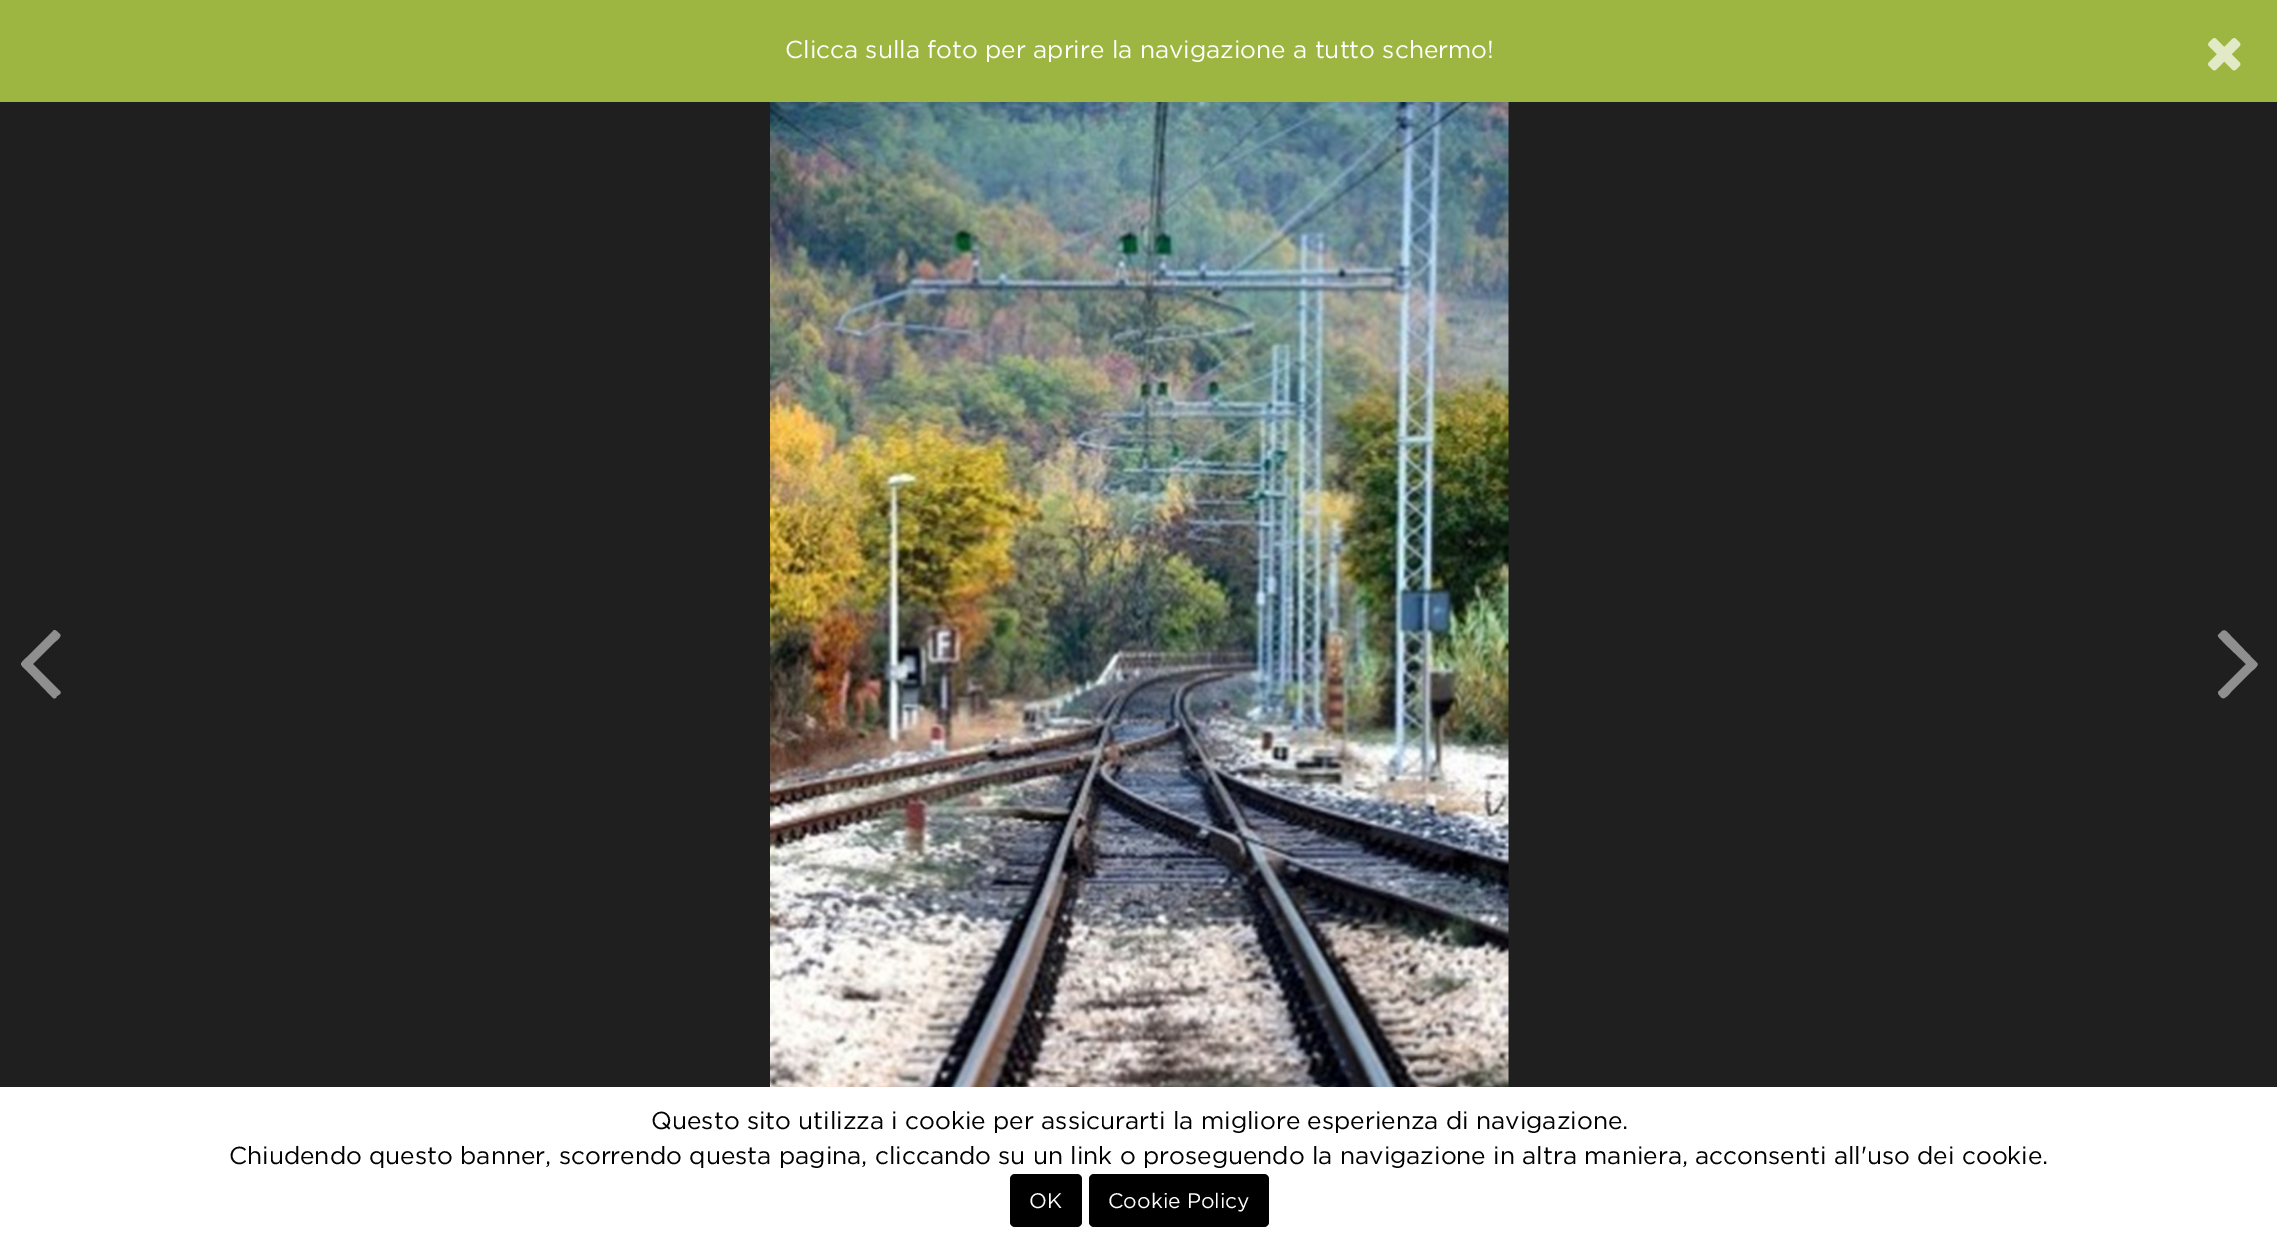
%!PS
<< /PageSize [2277 1243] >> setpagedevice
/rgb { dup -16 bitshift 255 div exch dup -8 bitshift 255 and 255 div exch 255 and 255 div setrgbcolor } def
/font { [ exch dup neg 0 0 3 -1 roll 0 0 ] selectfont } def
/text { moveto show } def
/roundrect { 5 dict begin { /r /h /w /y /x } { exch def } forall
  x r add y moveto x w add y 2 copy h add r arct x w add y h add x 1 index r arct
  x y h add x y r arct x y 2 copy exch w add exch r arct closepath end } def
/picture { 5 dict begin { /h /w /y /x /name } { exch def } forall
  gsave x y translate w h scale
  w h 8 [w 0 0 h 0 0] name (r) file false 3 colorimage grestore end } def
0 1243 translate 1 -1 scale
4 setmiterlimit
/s1 { /Gotham-Regular 24.5 font 16#FFFFFF rgb } def
/s2 { /Gotham-Regular 24.5 font 16#000000 rgb } def
/s3 { /Gotham-Regular 21 font 16#FFFFFF rgb } def
16#1F1F1F rgb
0 0 2277 1243 rectfill
16#9CB641 rgb
0 0 2277 102 rectfill
s1
(Clicca sulla foto per aprire la navigazione a tutto schermo!) 785 58 text
(pic1.raw) 2208 38 33 33 picture
16#8F8F8F rgb
60 634 moveto 62 637 56 641 55 642 curveto 33 664 lineto 60 691 lineto 62 693 59 695 57 696 curveto 56 698 55 699 53 698 curveto 27 671 lineto 19 663 19 665 27 657 curveto 53 631 lineto 55 628 58 633 60 634 curveto closepath fill
(pic2.raw) 770 102 739 985 picture
2257 663 moveto 2260 665 2252 671 2252 671 curveto 2231 692 lineto 2231 692 2225 700 2222 698 curveto 2221 697 2216 693 2219 691 curveto 2246 664 lineto 2223 642 lineto 2223 641 2217 637 2218 635 curveto 2221 632 lineto 2225 628 2227 632 2231 636 curveto closepath fill
16#FFFFFF rgb
0 1087 2277 156 rectfill
s2
(Questo sito utilizza i cookie per assicurarti la migliore esperienza di navigazione.) 651 1129 text
(Chiudendo questo banner, scorrendo questa pagina, cliccando su un link o proseguendo la navigazione in altra maniera, acconsenti all'uso dei cookie.) 229 1164 text
1010 1174 72 53 5 roundrect fill
s3
(OK) 1029 1208 text
16#000000 rgb
1089 1174 180 53 5 roundrect fill
s3
(Cookie Policy) 1108 1208 text
showpage
